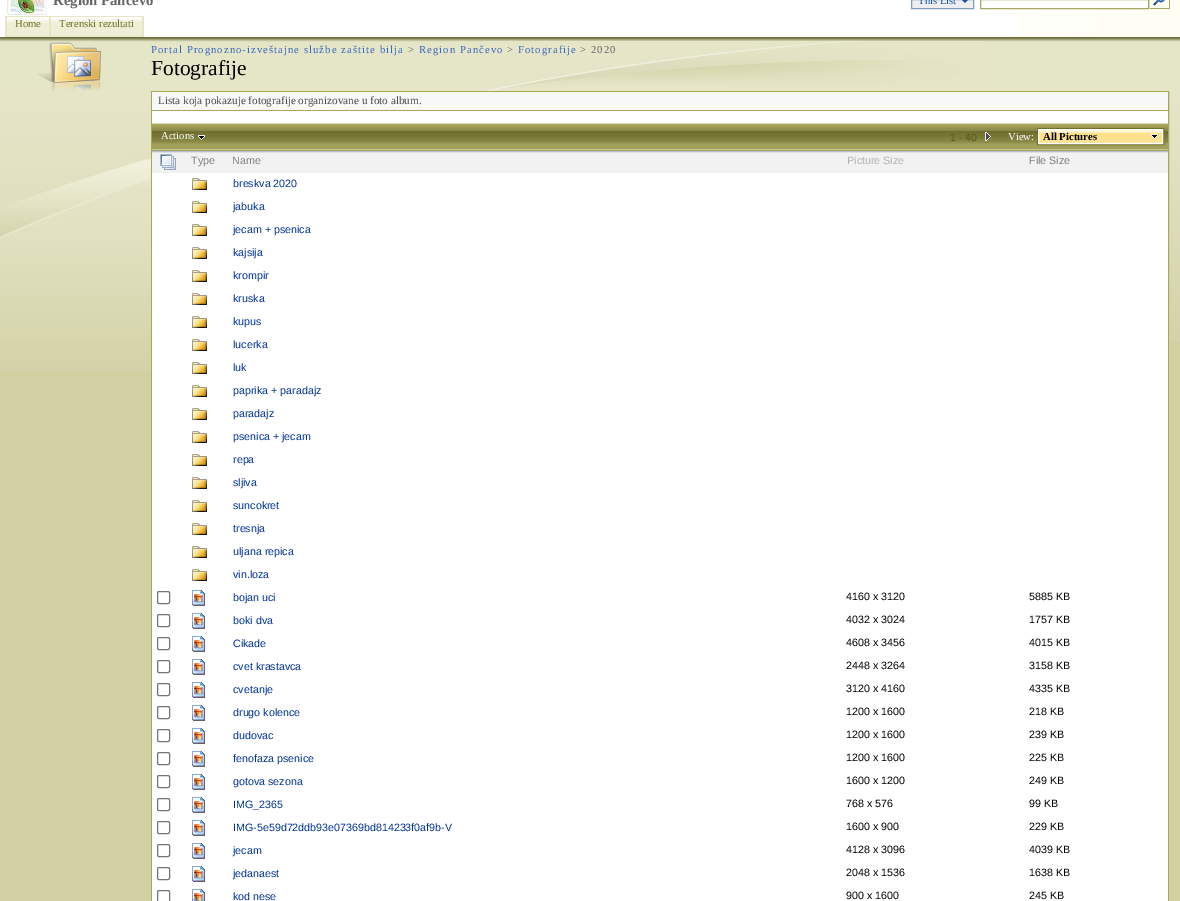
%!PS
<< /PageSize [1180 901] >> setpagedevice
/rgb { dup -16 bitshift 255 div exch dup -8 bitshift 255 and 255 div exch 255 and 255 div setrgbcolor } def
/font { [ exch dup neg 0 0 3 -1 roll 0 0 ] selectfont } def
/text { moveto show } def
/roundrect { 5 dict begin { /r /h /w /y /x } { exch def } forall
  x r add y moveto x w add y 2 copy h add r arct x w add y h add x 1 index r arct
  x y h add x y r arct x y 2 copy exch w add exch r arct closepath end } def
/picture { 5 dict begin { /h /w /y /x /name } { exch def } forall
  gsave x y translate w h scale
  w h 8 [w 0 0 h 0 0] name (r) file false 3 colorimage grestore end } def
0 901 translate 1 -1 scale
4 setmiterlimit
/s1 { /LiberationSerif-Bold 14.75 font 16#666666 rgb } def
/s2 { /LiberationSerif-Regular 10.7 font 16#1952A4 rgb } def
/s3 { /LiberationSerif-Regular 10.7 font 16#706F2E rgb } def
/s4 { /LiberationSerif-Regular 21.5 font 16#000000 rgb } def
/s5 { /LiberationSerif-Regular 11.2 font 16#4C4C4C rgb } def
/s6 { /LiberationSerif-Regular 10.7 font 16#FFFFFF rgb } def
/s7 { /LiberationSans-Regular 10.7 font 16#59581A rgb } def
/s8 { /LiberationSerif-Bold 10.7 font 16#000000 rgb } def
/s9 { /LiberationSans-Regular 10.7 font 16#808080 rgb } def
/s10 { /LiberationSans-Regular 10.7 font 16#B2B2B2 rgb } def
/s11 { /LiberationSans-Regular 10.7 font 16#003399 rgb } def
/s12 { /LiberationSans-Regular 10.7 font 16#000000 rgb } def
16#FFFFFF rgb
0 0 1180 901 rectfill
(pic1.raw) 1016 0 164 16 picture
(pic2.raw) 7 0 40 15 picture
s1
(Region Pančevo) 53 5 text
16#EFEFEF rgb
911.5 -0.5 moveto 973.5 -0.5 lineto 973.5 8.5 lineto 911.5 8.5 lineto closepath gsave fill grestore
16#7F9DB9 rgb
stroke
16#1952A4 rgb
2 setlinewidth
961 -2.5 moveto 965 1.5 lineto 969 -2.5 lineto stroke
s2
(This List) 918 4 text
16#FFFFFF rgb
1016 0 132 8 rectfill
16#A8A761 rgb
1 setlinewidth
980.5 -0.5 168 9 rectstroke
1169 0 1 9 rectfill
1149 8 21 1 rectfill
16#DBDAB8 rgb
1149 0 1 9 rectfill
(pic3.raw) 1153 0 12 6 picture
(pic4.raw) 1016 16 164 21 picture
16#E5E5C7 rgb
143 16 1 21 rectfill
5 16 1 21 rectfill
6.5 16.5 43 20 rectstroke
(pic5.raw) 7 17 42 19 picture
s3
(Home) 15 27 text
16#E5E5C7 rgb
50.5 16.5 92 20 rectstroke
(pic6.raw) 51 17 91 19 picture
s3
(Terenski rezultati) 59 27 text
16#E5E5C7 rgb
0 42 145 49 rectfill
(pic7.raw) 0 37 145 5 picture
(pic8.raw) 37 42 64 49 picture
145 37 6 54 rectfill
(pic9.raw) 145 37 6 5 picture
(pic10.raw) 1169 37 11 5 picture
151 42 1029 49 rectfill
(pic11.raw) 151 37 1018 5 picture
(pic12.raw) 483 41 500 50 picture
16#3966BF rgb
151 53 moveto 1.05 0 (Portal Prognozno-izveštajne službe zaštite bilja) ashow
16#666666 rgb
408 53 moveto 1.05 0 (>) ashow
16#3966BF rgb
419 53 moveto 1.05 0 (Region Pančevo) ashow
16#666666 rgb
507 53 moveto 1.05 0 (>) ashow
16#3966BF rgb
518 53 moveto 1.05 0 (Fotografije) ashow
16#666666 rgb
580 53 moveto 1.05 0 (> 2020) ashow
s4
(Fotografije) 151 75 text
16#D1D0A3 rgb
0 371 151 530 rectfill
(pic13.raw) 0 91 145 280 picture
(pic14.raw) 145 91 6 280 picture
16#A8A761 rgb
151 91 1018 1 rectfill
1168 91 1 810 rectfill
151 91 1 810 rectfill
16#F8F8F8 rgb
152 92 1016 18 rectfill
16#A8A761 rgb
152 110 1016 1 rectfill
s5
(Lista koja pokazuje fotografije organizovane u foto album.) 158 104 text
16#A2A15C rgb
152 144 1016 5 rectfill
(pic15.raw) 152 124 1016 20 picture
16#A8A761 rgb
152 150 1016 1 rectfill
16#DBDAB8 rgb
152 123 1016 1 rectfill
16#C6C58F rgb
152 149 1016 1 rectfill
s6
(Actions) 161 139 text
(pic16.raw) 198 135 7 5 picture
s7
(1 - 40) 950 141 text
(pic17.raw) 985 132 6 9 picture
s6
(View:) 1008 140 text
(pic18.raw) 1039 130 123 13 picture
16#706F2E rgb
1037.5 128.5 126 16 rectstroke
(pic19.raw) 1151 134 7 5 picture
16#FFFFFF rgb
1038.5 129.5 124 14 rectstroke
s8
(All Pictures) 1043 140 text
16#F2F2F2 rgb
152 153 1016 20 rectfill
(pic20.raw) 152 151 32 2 picture
(pic21.raw) 160 154 16 16 picture
(pic22.raw) 184 151 41 2 picture
s9
(Type) 191 164 text
(pic23.raw) 225 151 614 2 picture
(Name) 232 164 text
(pic24.raw) 839 151 183 2 picture
s10
(Picture Size) 847 164 text
(pic25.raw) 1022 151 146 2 picture
s9
(File Size) 1029 164 text
(pic26.raw) 192 178 15 12 picture
s11
(breskva 2020) 233 187 text
(pic26.raw) 192 201 15 12 picture
(jabuka) 233 210 text
(pic26.raw) 192 224 15 12 picture
(jecam + psenica) 233 233 text
(pic26.raw) 192 247 15 12 picture
(kajsija) 233 256 text
(pic26.raw) 192 270 15 12 picture
(krompir) 233 279 text
(pic26.raw) 192 293 15 12 picture
(kruska) 233 302 text
(pic26.raw) 192 316 15 12 picture
(kupus) 233 325 text
(pic26.raw) 192 339 15 12 picture
(lucerka) 233 348 text
(pic26.raw) 192 362 15 12 picture
(luk) 233 371 text
(pic26.raw) 192 385 15 12 picture
(paprika + paradajz) 233 394 text
(pic26.raw) 192 408 15 12 picture
(paradajz) 233 417 text
(pic26.raw) 192 431 15 12 picture
(psenica + jecam) 233 440 text
(pic26.raw) 192 454 15 12 picture
(repa) 233 463 text
(pic26.raw) 192 477 15 12 picture
(sljiva) 233 486 text
(pic26.raw) 192 500 15 12 picture
(suncokret) 233 509 text
(pic26.raw) 192 523 15 12 picture
(tresnja) 233 532 text
(pic26.raw) 192 546 15 12 picture
(uljana repica) 233 555 text
(pic26.raw) 192 569 15 12 picture
(vin.loza) 233 578 text
16#767676 rgb
157.5 591.5 12 12 1.5 roundrect stroke
(pic27.raw) 192 590 13 16 picture
s11
(bojan uci) 233 601 text
s12
(4160 x 3120) 846 600 text
(5885 KB) 1029 600 text
16#767676 rgb
157.5 614.5 12 12 1.5 roundrect stroke
(pic27.raw) 192 613 13 16 picture
s11
(boki dva) 233 624 text
s12
(4032 x 3024) 846 623 text
(1757 KB) 1029 623 text
16#767676 rgb
157.5 637.5 12 12 1.5 roundrect stroke
(pic27.raw) 192 636 13 16 picture
s11
(Cikade) 233 647 text
s12
(4608 x 3456) 846 646 text
(4015 KB) 1029 646 text
16#767676 rgb
157.5 660.5 12 12 1.5 roundrect stroke
(pic27.raw) 192 659 13 16 picture
s11
(cvet krastavca) 233 670 text
s12
(2448 x 3264) 846 669 text
(3158 KB) 1029 669 text
16#767676 rgb
157.5 683.5 12 12 1.5 roundrect stroke
(pic27.raw) 192 682 13 16 picture
s11
(cvetanje) 233 693 text
s12
(3120 x 4160) 846 692 text
(4335 KB) 1029 692 text
16#767676 rgb
157.5 706.5 12 12 1.5 roundrect stroke
(pic27.raw) 192 705 13 16 picture
s11
(drugo kolence) 233 716 text
s12
(1200 x 1600) 846 715 text
(218 KB) 1029 715 text
16#767676 rgb
157.5 729.5 12 12 1.5 roundrect stroke
(pic27.raw) 192 728 13 16 picture
s11
(dudovac) 233 739 text
s12
(1200 x 1600) 846 738 text
(239 KB) 1029 738 text
16#767676 rgb
157.5 752.5 12 12 1.5 roundrect stroke
(pic27.raw) 192 751 13 16 picture
s11
(fenofaza psenice) 233 762 text
s12
(1200 x 1600) 846 761 text
(225 KB) 1029 761 text
16#767676 rgb
157.5 775.5 12 12 1.5 roundrect stroke
(pic27.raw) 192 774 13 16 picture
s11
(gotova sezona) 233 785 text
s12
(1600 x 1200) 846 784 text
(249 KB) 1029 784 text
16#767676 rgb
157.5 798.5 12 12 1.5 roundrect stroke
(pic27.raw) 192 797 13 16 picture
s11
(IMG_2365) 233 808 text
s12
(768 x 576) 846 807 text
(99 KB) 1029 807 text
16#767676 rgb
157.5 821.5 12 12 1.5 roundrect stroke
(pic27.raw) 192 820 13 16 picture
s11
(IMG-5e59d72ddb93e07369bd814233f0af9b-V) 233 831 text
s12
(1600 x 900) 846 830 text
(229 KB) 1029 830 text
16#767676 rgb
157.5 844.5 12 12 1.5 roundrect stroke
(pic27.raw) 192 843 13 16 picture
s11
(jecam) 233 854 text
s12
(4128 x 3096) 846 853 text
(4039 KB) 1029 853 text
16#767676 rgb
157.5 867.5 12 12 1.5 roundrect stroke
(pic27.raw) 192 866 13 16 picture
s11
(jedanaest) 233 877 text
s12
(2048 x 1536) 846 876 text
(1638 KB) 1029 876 text
16#767676 rgb
157.5 890.5 12 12 1.5 roundrect stroke
(pic28.raw) 192 889 13 12 picture
s11
(kod nese) 233 900 text
s12
(900 x 1600) 846 899 text
(245 KB) 1029 899 text
16#D1D0A3 rgb
1170 342 10 559 rectfill
(pic29.raw) 1170 91 10 251 picture
1169 91 1 810 rectfill
showpage
